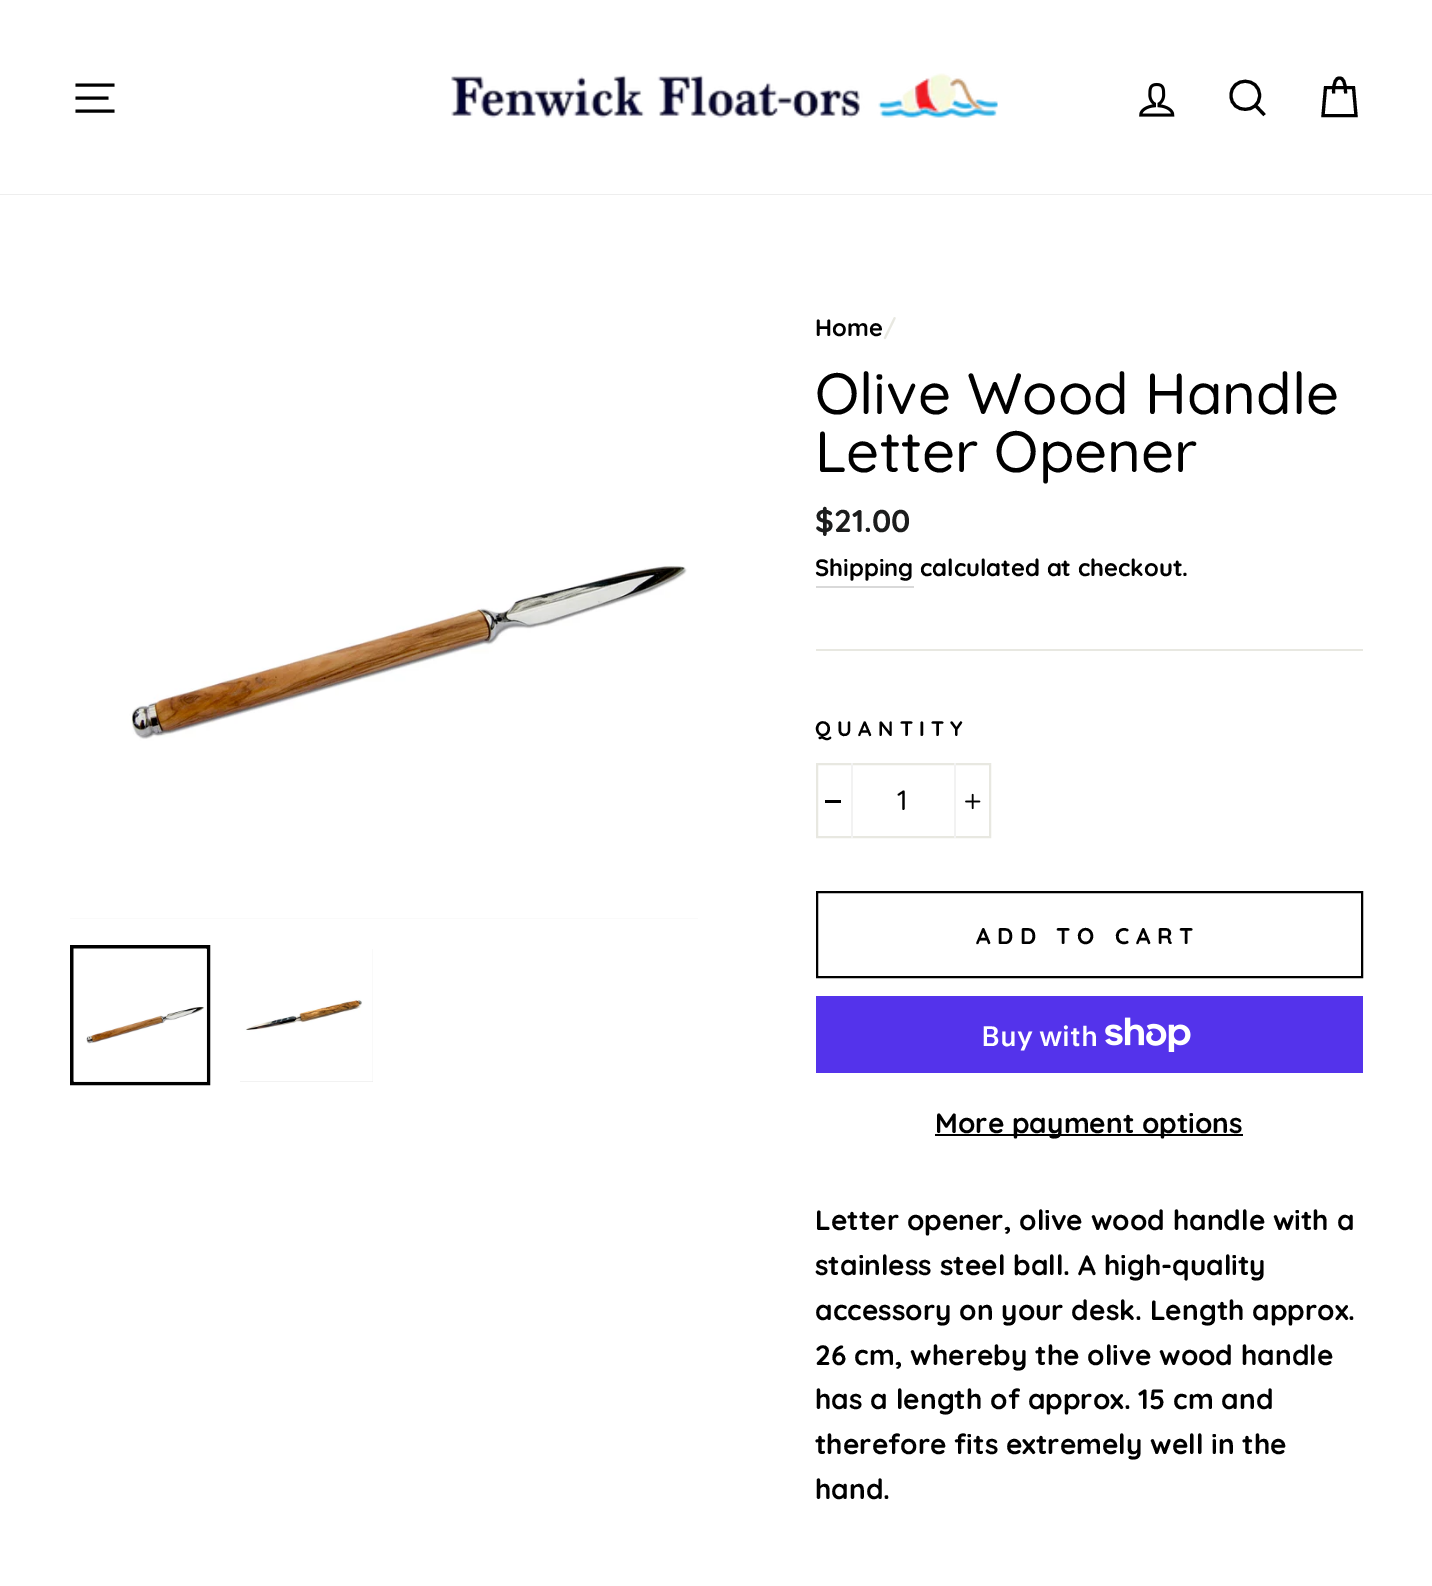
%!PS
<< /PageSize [1432 1586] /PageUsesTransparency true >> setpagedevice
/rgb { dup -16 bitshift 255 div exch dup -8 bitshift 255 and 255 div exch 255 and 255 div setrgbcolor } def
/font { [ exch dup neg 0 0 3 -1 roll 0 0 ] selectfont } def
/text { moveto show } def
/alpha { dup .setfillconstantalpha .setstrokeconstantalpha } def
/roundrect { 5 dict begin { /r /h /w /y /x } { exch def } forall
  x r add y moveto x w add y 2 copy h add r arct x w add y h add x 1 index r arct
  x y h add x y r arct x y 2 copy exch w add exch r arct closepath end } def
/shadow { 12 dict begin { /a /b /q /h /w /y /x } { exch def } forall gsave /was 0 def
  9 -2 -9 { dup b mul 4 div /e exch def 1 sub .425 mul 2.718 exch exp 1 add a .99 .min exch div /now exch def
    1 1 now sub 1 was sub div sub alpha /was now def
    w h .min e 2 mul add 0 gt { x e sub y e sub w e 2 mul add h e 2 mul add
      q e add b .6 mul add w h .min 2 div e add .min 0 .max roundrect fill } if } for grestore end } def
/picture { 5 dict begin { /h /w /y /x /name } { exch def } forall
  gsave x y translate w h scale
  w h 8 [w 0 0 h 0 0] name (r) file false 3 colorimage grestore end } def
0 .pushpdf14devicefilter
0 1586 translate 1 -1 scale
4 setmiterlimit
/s1 { /Quicksand-Bold 23.75 font 16#000000 rgb } def
/s2 { /Quicksand-Bold 23.75 font 16#E8E8E1 rgb } def
/s3 { /Quicksand-Medium 58 font 16#000000 rgb } def
/s4 { /Quicksand-Bold 31.5 font 16#1C1D1D rgb } def
/s5 { /Quicksand-Medium 28 font 16#000000 rgb } def
/s6 { /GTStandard-SemiBold 28 font 16#FFFFFF rgb } def
/s7 { /Quicksand-Bold 28 font 16#000000 rgb } def
16#FFFFFF rgb
0 0 1432 1586 rectfill
gsave
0 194 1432 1 rectclip
16#000000 rgb
0 0 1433 194 0 1 0.2 shadow
grestore
16#000000 rgb
3.1 setlinewidth
75.5 85 moveto 114.5 85 lineto 75.5 98 moveto 108.5 98 lineto 75.5 111 moveto 114.5 111 lineto stroke
(pic1.raw) 451 73 547 45 picture
(pic2.raw) 1139 82 36 35 picture
1259.5 95.5 moveto 1259.5 114 1231 114 1231 95.5 curveto 1231 76.5 1259.5 76.5 1259.5 95.5 curveto closepath 1264.5 115 moveto 1255.5 105.5 lineto stroke
1333.5 93.5 moveto 1333.5 81.5 1336 78 1339.5 78 curveto 1343 78 1345.5 81.5 1345.5 93.5 curveto 1325.5 87.5 moveto 1353.5 87.5 lineto 1356 115.5 lineto 1323 115.5 lineto closepath stroke
(pic3.raw) 70 291 628 628 picture
4 setlinewidth
72 947 136 136 rectstroke
16#E5E5E5 rgb
74 949 133 133 rectfill
(pic4.raw) 73 948 134 134 picture
240 949 133 133 rectfill
(pic5.raw) 240 949 133 133 picture
s1
(Home) 815 336 text
s2
(/) 883 336 text
s3
(Olive Wood Handle) 815 414 text
(Letter Opener) 815 472 text
s4
($21.00) 815 532 text
16#D9D9D9 rgb
816 586 98 2 rectfill
s1
(Shipping) 815 576 text
(calculated at checkout.) 920 576 text
16#E8E8E1 rgb
816 649 547 2 rectfill
/Quicksand-Bold 21 font
16#000000 rgb
815 736 moveto 6.25 0 (QUANTITY) ashow
16#E8E8E1 rgb
2 setlinewidth
817 764 173 73 rectstroke
16#F2F2F2 rgb
851 763 2 75 rectfill
16#000000 rgb
825 800 16 3 rectfill
s5
(1) 897 810 text
16#F2F2F2 rgb
954 763 2 75 rectfill
(pic6.raw) 965 793 16 17 picture
16#000000 rgb
817 892 545 85 rectstroke
/Quicksand-Bold 22.75 font
976 944 moveto 6.75 0 (ADD TO CART) ashow
16#5433EB rgb
816 996 547 77 rectfill
s6
(Buy with) 981 1046 text
(pic7.raw) 1105 1017 86 35 picture
16#000000 rgb
935 1134 308 2 rectfill
s7
(More payment options) 935 1133 text
(Letter opener, olive wood handle with a) 815 1230 text
(stainless steel ball. A high-quality) 815 1275 text
(accessory on your desk. Length approx.) 815 1320 text
(26 cm, whereby the olive wood handle) 815 1365 text
(has a length of approx. 15 cm and) 815 1409 text
(therefore fits extremely well in the) 815 1454 text
(hand.) 815 1499 text
.poppdf14devicefilter showpage
